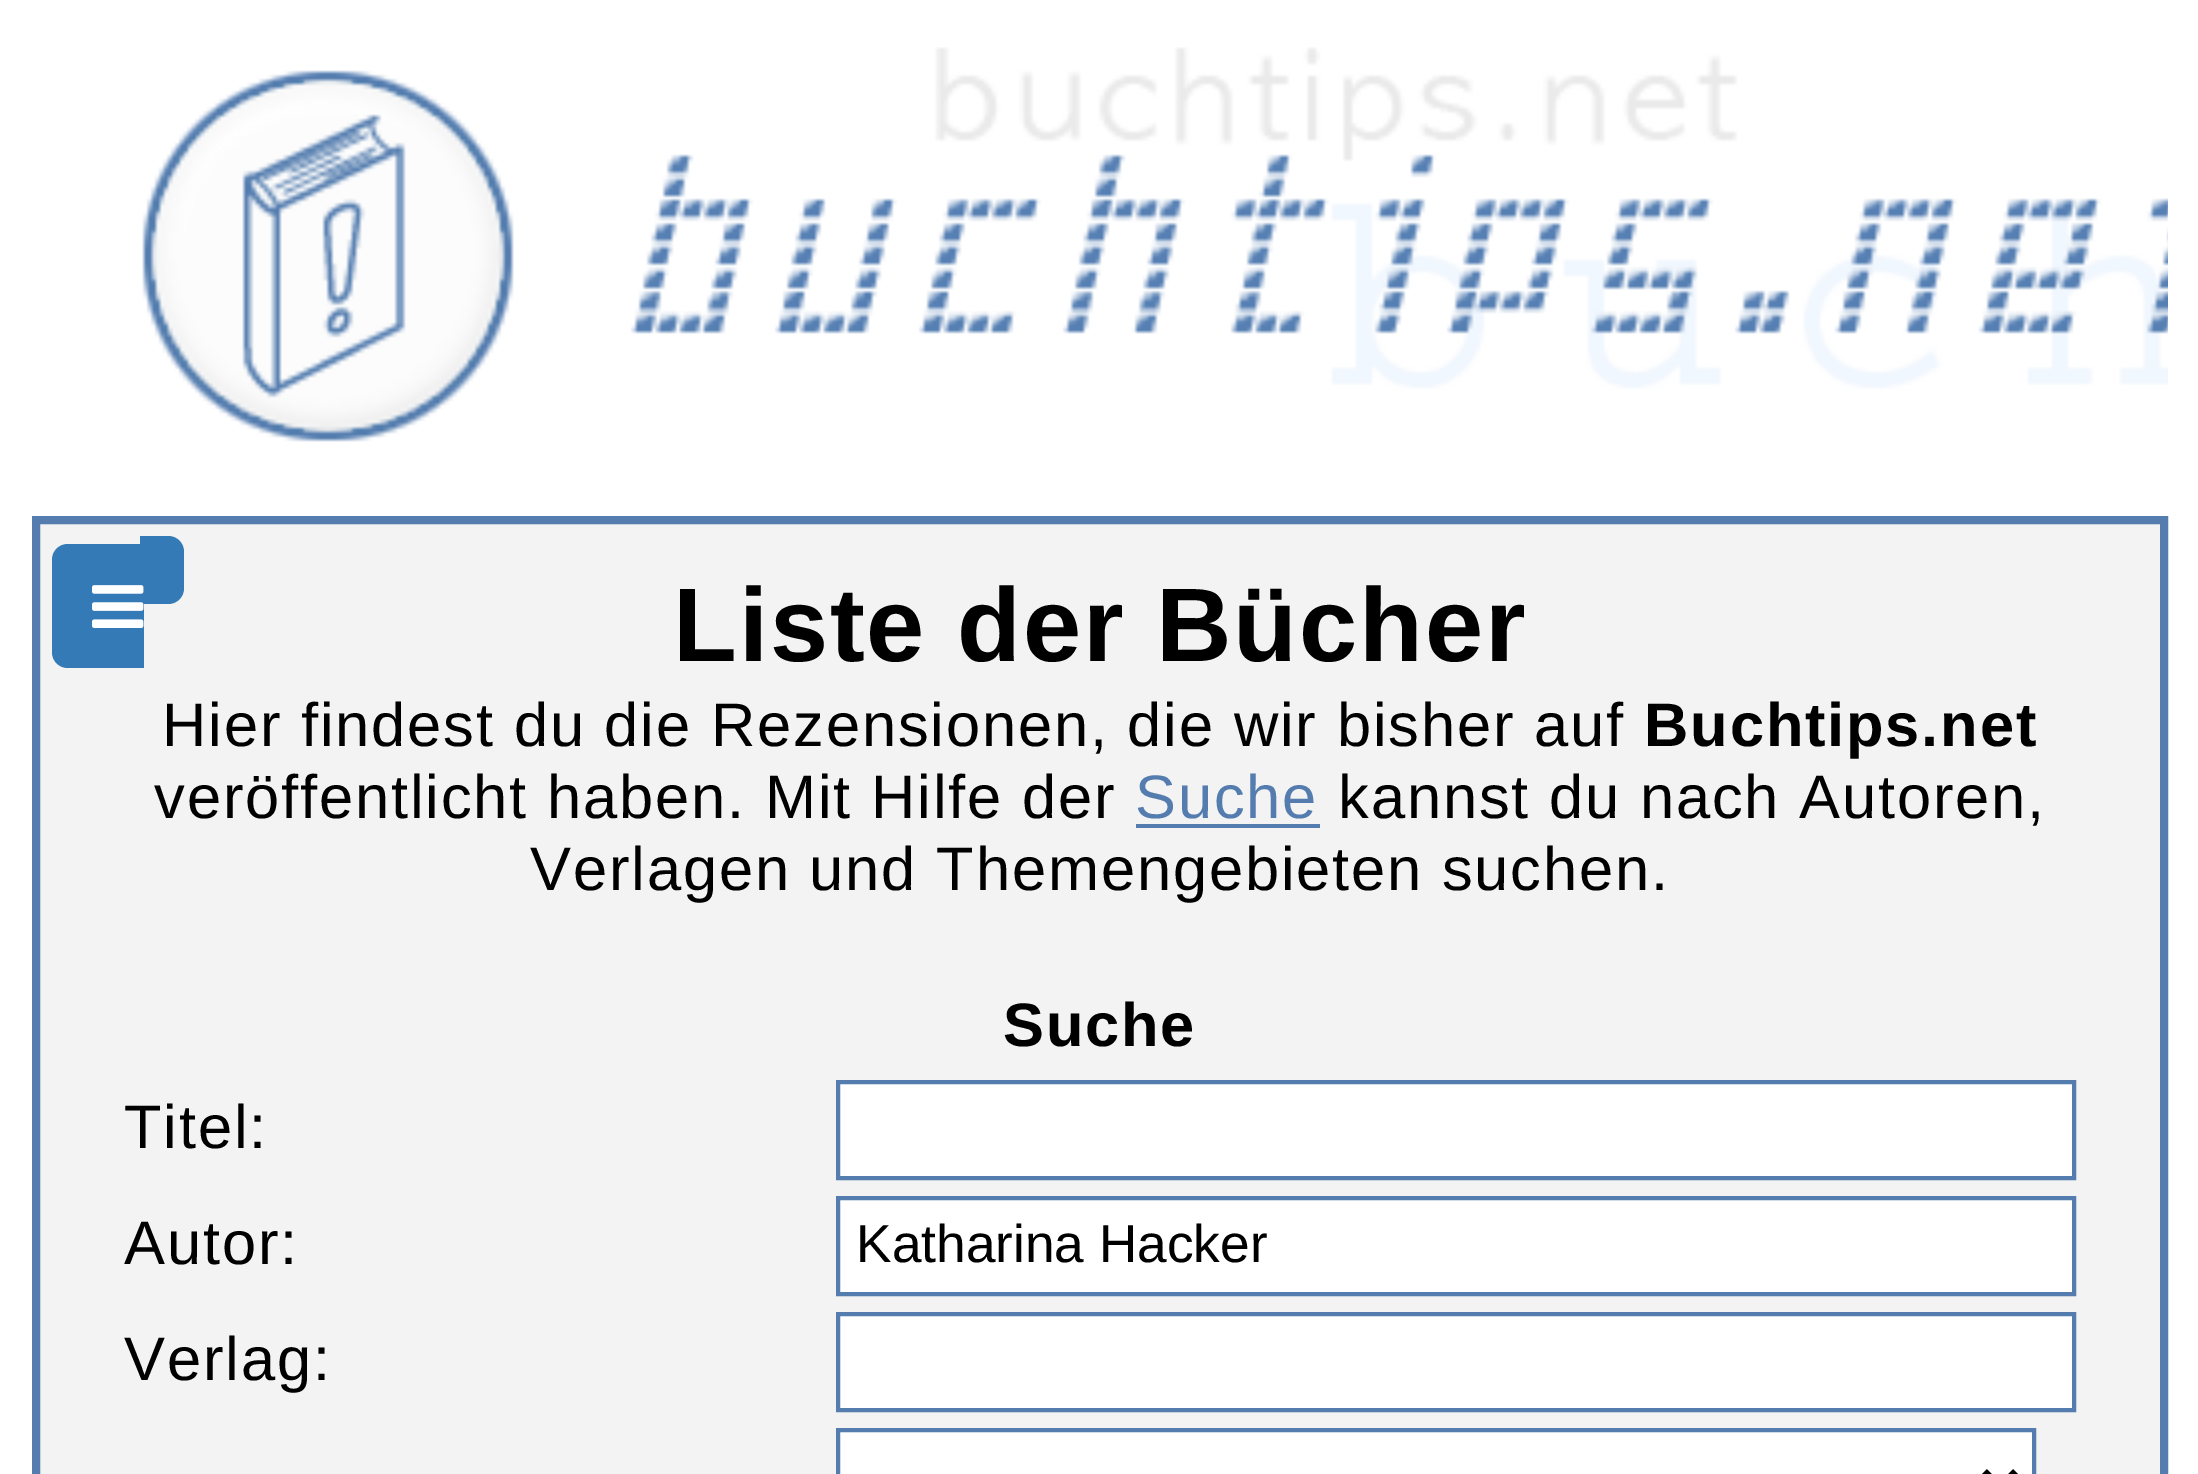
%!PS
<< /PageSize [2198 1474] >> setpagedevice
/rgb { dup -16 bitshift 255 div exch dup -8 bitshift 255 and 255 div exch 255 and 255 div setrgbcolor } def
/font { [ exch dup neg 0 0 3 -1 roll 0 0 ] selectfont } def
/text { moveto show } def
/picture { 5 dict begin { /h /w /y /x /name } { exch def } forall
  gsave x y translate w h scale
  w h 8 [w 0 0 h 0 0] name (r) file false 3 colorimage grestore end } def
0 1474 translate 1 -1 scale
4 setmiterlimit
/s1 { /LiberationSans-Regular 53.25 font 16#000000 rgb } def
16#FFFFFF rgb
0 0 2198 1474 rectfill
(pic1.raw) 142 47 2026 395 picture
16#F3F3F3 rgb
36 520 moveto 2164 520 lineto 2164 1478 lineto 36 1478 lineto closepath gsave fill grestore
16#547CAF rgb
8 setlinewidth
stroke
16#337AB7 rgb
68 544 moveto 144 544 lineto 144 668 lineto 68 668 lineto 59 668 52 661 52 652 curveto 52 560 lineto 52 551 59 544 68 544 curveto closepath fill
140 536 moveto 168 536 lineto 177 536 184 543 184 552 curveto 184 588 lineto 184 597 177 604 168 604 curveto 140 604 lineto closepath fill
(pic2.raw) 92 585 52 43 picture
/LiberationSans-Bold 104.5 font
16#000000 rgb
673 661 moveto 1.85 0 (Liste der Bücher) ashow
/LiberationSans-Regular 61.4 font
162 746 moveto 1.85 0 (Hier findest du die Rezensionen, die wir bisher auf) ashow
/LiberationSans-Bold 61.4 font
1644 746 moveto 1.85 0 (Buchtips.net) ashow
/LiberationSans-Regular 61.4 font
154 818 moveto 1.85 0 (veröffentlicht haben. Mit Hilfe der) ashow
16#547CAF rgb
1135 818 moveto 1.85 0 (Suche) ashow
1136 824 184 4 rectfill
16#000000 rgb
1338 818 moveto 1.85 0 (kannst du nach Autoren,) ashow
530 890 moveto 1.85 0 (Verlagen und Themengebieten suchen.) ashow
/LiberationSans-Bold 61.4 font
1003 1046 moveto 1.85 0 (Suche) ashow
/LiberationSans-Regular 61.4 font
124 1148 moveto 1.85 0 (Titel:) ashow
16#FFFFFF rgb
838 1082 moveto 2074 1082 lineto 2074 1178 lineto 838 1178 lineto closepath gsave fill grestore
16#547CAF rgb
4 setlinewidth
stroke
16#000000 rgb
124 1264 moveto 1.85 0 (Autor:) ashow
16#FFFFFF rgb
838 1198 moveto 2074 1198 lineto 2074 1294 lineto 838 1294 lineto closepath gsave fill grestore
16#547CAF rgb
stroke
s1
(Katharina Hacker) 856 1262 text
/LiberationSans-Regular 61.4 font
124 1380 moveto 1.85 0 (Verlag:) ashow
16#FFFFFF rgb
838 1314 moveto 2074 1314 lineto 2074 1410 lineto 838 1410 lineto closepath gsave fill grestore
16#547CAF rgb
stroke
16#FFFFFF rgb
838 1430 moveto 2034 1430 lineto 2034 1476 lineto 838 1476 lineto closepath gsave fill grestore
16#547CAF rgb
stroke
16#000000 rgb
8 setlinewidth
1984 1472 moveto 2000 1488 lineto 2016 1472 lineto stroke
showpage
